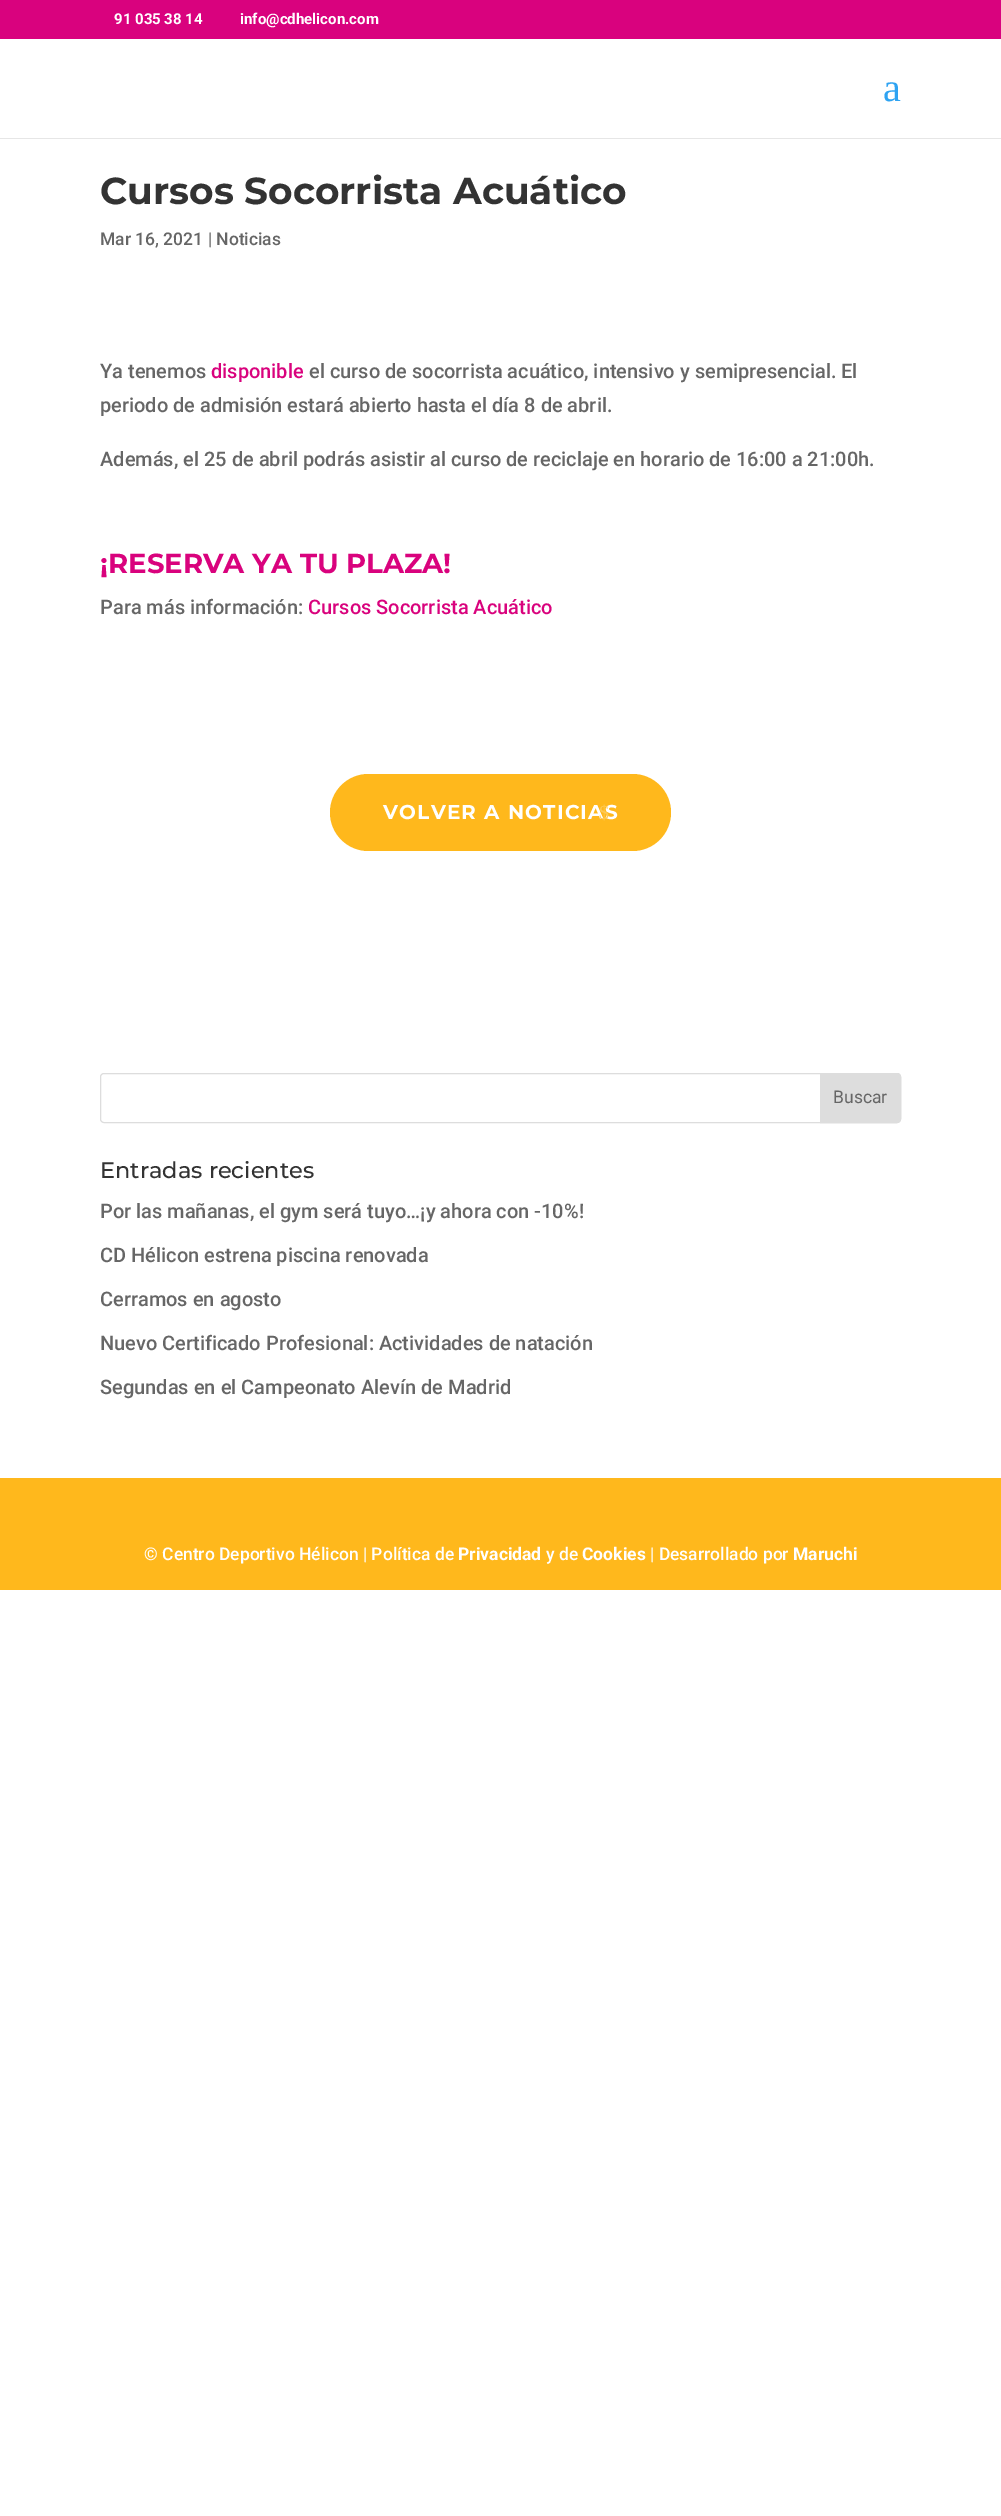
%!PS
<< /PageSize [1001 2516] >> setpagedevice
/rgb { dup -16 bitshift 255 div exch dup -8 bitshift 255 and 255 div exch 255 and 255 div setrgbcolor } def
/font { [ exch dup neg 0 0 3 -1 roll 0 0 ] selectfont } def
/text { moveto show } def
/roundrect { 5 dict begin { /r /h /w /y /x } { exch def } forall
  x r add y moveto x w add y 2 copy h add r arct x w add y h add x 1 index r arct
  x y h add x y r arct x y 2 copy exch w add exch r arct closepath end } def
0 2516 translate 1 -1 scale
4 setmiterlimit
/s1 { /Roboto-Bold 15 font 16#FFFFFF rgb } def
/s2 { /LiberationSerif-Regular 40 font 16#2EA3F2 rgb } def
/s3 { /Montserrat-Thin 37.5 font 16#333333 rgb } def
/s4 { /Roboto-Medium 17.5 font 16#666666 rgb } def
/s5 { /Roboto-Medium 20 font 16#666666 rgb } def
/s6 { /Roboto-Medium 20 font 16#D9027D rgb } def
/s7 { /Montserrat-Thin 27.5 font 16#D9027D rgb } def
/s8 { /Roboto-Regular 17.5 font 16#666666 rgb } def
/s9 { /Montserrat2-Thin 22.5 font 16#333333 rgb } def
/s10 { /Roboto-Medium 17.5 font 16#FFFFFF rgb } def
/s11 { /Roboto-Bold 17.5 font 16#FFFFFF rgb } def
16#FFFFFF rgb
0 0 1001 2516 rectfill
16#D9027E rgb
0 0 1001 39 rectfill
s1
(91 035 38 14) 114 24 text
(info@cdhelicon.com) 240 24 text
16#E6E6E6 rgb
0 138 1001 1 rectfill
s2
(a) 883 101 text
s3
(Cursos Socorrista Acuático) 100 204 text
s4
(Mar 16, 2021 | Noticias) 100 245 text
s5
(Ya tenemos) 100 378 text
s6
(disponible) 211 378 text
s5
(el curso de socorrista acuático, intensivo y semipresencial. El) 309 378 text
(periodo de admisión estará abierto hasta el día 8 de abril.) 100 412 text
(Además, el 25 de abril podrás asistir al curso de reciclaje en horario de 16:00 a 21:00h.) 100 466 text
s7
(¡RESERVA YA TU PLAZA!) 100 573 text
s5
(Para más información:) 100 614 text
s6
(Cursos Socorrista Acuático) 308 614 text
16#FFB81C rgb
330 774 341 77 38.5 roundrect fill
/Montserrat-Thin 20 font
16#FFFFFF rgb
383 819 moveto 1.25 0 (VOLVER A NOTICIAS) ashow
/LiberationSerif-Regular 20 font
16#FFC952 rgb
599 819 moveto 1.25 0 ($) ashow
16#DDDDDD rgb
100.5 1073.5 800 49 3.5 roundrect stroke
820.5 1073.5 moveto 897 1073.5 lineto 899 1073.5 900.5 1075 900.5 1077 curveto 900.5 1119 lineto 900.5 1121 899 1122.5 897 1122.5 curveto 820.5 1122.5 lineto closepath gsave fill grestore
stroke
s8
(Buscar) 833 1103 text
s9
(Entradas recientes) 100 1178 text
s5
(Por las mañanas, el gym será tuyo…¡y ahora con -10%!) 100 1218 text
(CD Hélicon estrena piscina renovada) 100 1262 text
(Cerramos en agosto) 100 1306 text
(Nuevo Certificado Profesional: Actividades de natación) 100 1350 text
(Segundas en el Campeonato Alevín de Madrid) 100 1394 text
16#FFB81C rgb
0 1478 1001 112 rectfill
s10
(© Centro Deportivo Hélicon | Política de) 144 1560 text
s11
(Privacidad) 458 1560 text
s10
(y de) 546 1560 text
s11
(Cookies) 582 1560 text
s10
(| Desarrollado por) 650 1560 text
s11
(Maruchi) 793 1560 text
showpage
